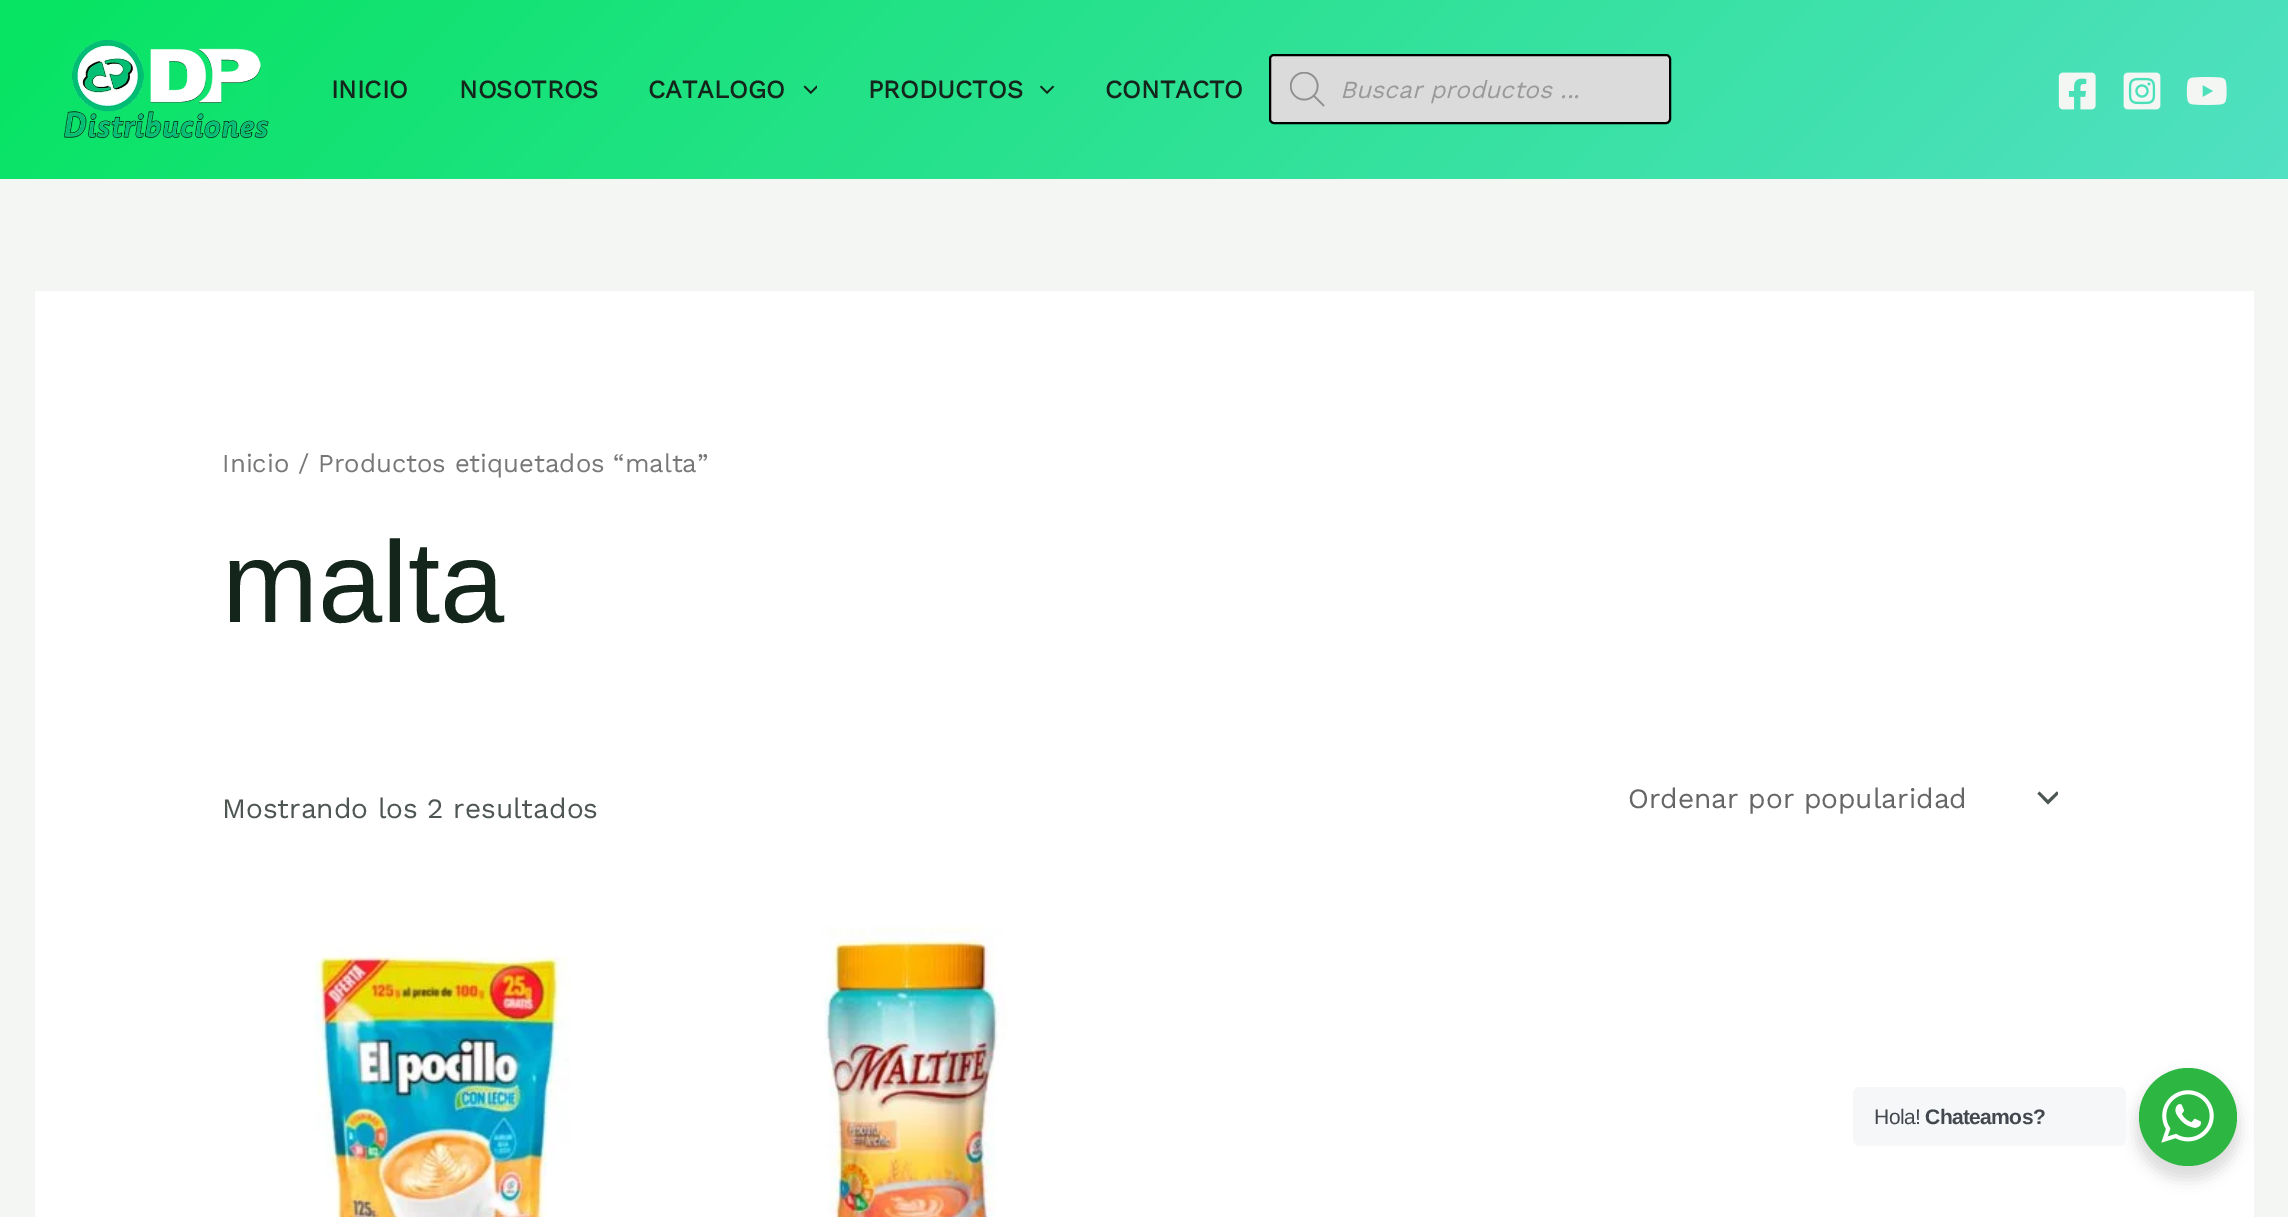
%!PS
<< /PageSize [2288 1217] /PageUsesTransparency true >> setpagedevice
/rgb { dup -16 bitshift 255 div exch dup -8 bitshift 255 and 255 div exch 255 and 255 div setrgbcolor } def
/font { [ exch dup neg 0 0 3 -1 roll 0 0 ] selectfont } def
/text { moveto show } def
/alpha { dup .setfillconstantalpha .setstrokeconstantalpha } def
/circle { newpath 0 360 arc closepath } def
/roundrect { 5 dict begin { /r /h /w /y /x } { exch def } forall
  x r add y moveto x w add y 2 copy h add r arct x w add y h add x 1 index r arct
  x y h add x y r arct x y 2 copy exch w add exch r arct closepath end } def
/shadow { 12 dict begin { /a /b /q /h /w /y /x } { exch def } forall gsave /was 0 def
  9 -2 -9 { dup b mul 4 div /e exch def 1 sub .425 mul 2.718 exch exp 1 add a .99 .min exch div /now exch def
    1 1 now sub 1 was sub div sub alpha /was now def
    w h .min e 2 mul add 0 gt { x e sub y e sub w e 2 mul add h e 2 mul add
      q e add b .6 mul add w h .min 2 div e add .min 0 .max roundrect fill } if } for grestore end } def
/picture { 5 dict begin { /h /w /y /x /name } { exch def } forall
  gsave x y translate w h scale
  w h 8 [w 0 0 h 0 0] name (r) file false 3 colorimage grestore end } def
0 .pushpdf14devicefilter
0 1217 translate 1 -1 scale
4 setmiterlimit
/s1 { /WorkSans-Bold 25.25 font 16#14261C rgb } def
/s2 { /WorkSans-Italic 24.5 font 16#999999 rgb } def
/s3 { /WorkSans-Regular 25.75 font 16#777777 rgb } def
/s4 { /LiberationSans-Regular 115.5 font 16#14261C rgb } def
/s5 { /WorkSans-Regular 28 font 16#4E5652 rgb } def
/s6 { /WorkSans-Regular 28 font 16#666666 rgb } def
16#F4F6F4 rgb
0 0 2288 1217 rectfill
gsave 0 0 moveto 2288 0 lineto 2288 179 lineto 0 179 lineto closepath clip newpath
<< /ShadingType 2 /ColorSpace /DeviceRGB /Coords [528 -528 1761 706] /Extend [true true] /Function << /FunctionType 3 /Domain [0 1] /Functions [<< /FunctionType 2 /Domain [0 1] /C0 [0.027 0.89 0.388] /C1 [0.027 0.89 0.388] /N 1 >> << /FunctionType 2 /Domain [0 1] /C0 [0.027 0.89 0.388] /C1 [0.318 0.878 0.765] /N 1 >>] /Bounds [0.02] /Encode [0 1 0 1] >> >> shfill grestore
(pic1.raw) 64 40 205 99 picture
s1
(INICIO) 331 98 text
(NOSOTROS) 459 98 text
(CATALOGO) 648 98 text
(pic2.raw) 803 85 14 10 picture
(PRODUCTOS) 868 98 text
(pic3.raw) 1040 85 15 9 picture
(CONTACTO) 1105 98 text
16#DBDBDB rgb
1270 55 400 68 4 roundrect gsave fill grestore
16#000000 rgb
2 setlinewidth
stroke
(pic4.raw) 1290 72 35 35 picture
s2
(Buscar productos ...) 1340 98 text
(pic5.raw) 2058 72 38 38 picture
(pic6.raw) 2123 72 38 38 picture
(pic7.raw) 2186 77 41 28 picture
16#FFFFFF rgb
35 291 2219 926 rectfill
s3
(Inicio / Productos etiquetados “malta”) 222 472 text
s4
(malta) 222 622 text
s5
(Mostrando los 2 resultados) 222 818 text
gsave
2037 791 21 14 rectclip
2037.5 793.5 moveto 2048 804.5 lineto 2059 793.5 lineto 2057 791.5 lineto 2048 800 lineto 2039.5 791.5 lineto closepath fill
grestore
s6
(Ordenar por popularidad) 1628 808 text
(pic8.raw) 314 946 256 271 picture
(pic9.raw) 822 926 186 291 picture
16#000000 rgb
2135 1075 105 105 52.5 7 0.14 shadow
16#F5F7F9 rgb
1853 1087 273 59 7 roundrect fill
/LiberationSans-Regular 21 font
16#43474E rgb
1874 1124 moveto -0.6 0 (Hola!) ashow
/LiberationSans-Bold 21 font
1925 1124 moveto -0.6 0 (Chateamos?) ashow
16#2DB742 rgb
2188 1117 49 circle fill
(pic10.raw) 2161 1090 53 53 picture
.poppdf14devicefilter showpage
